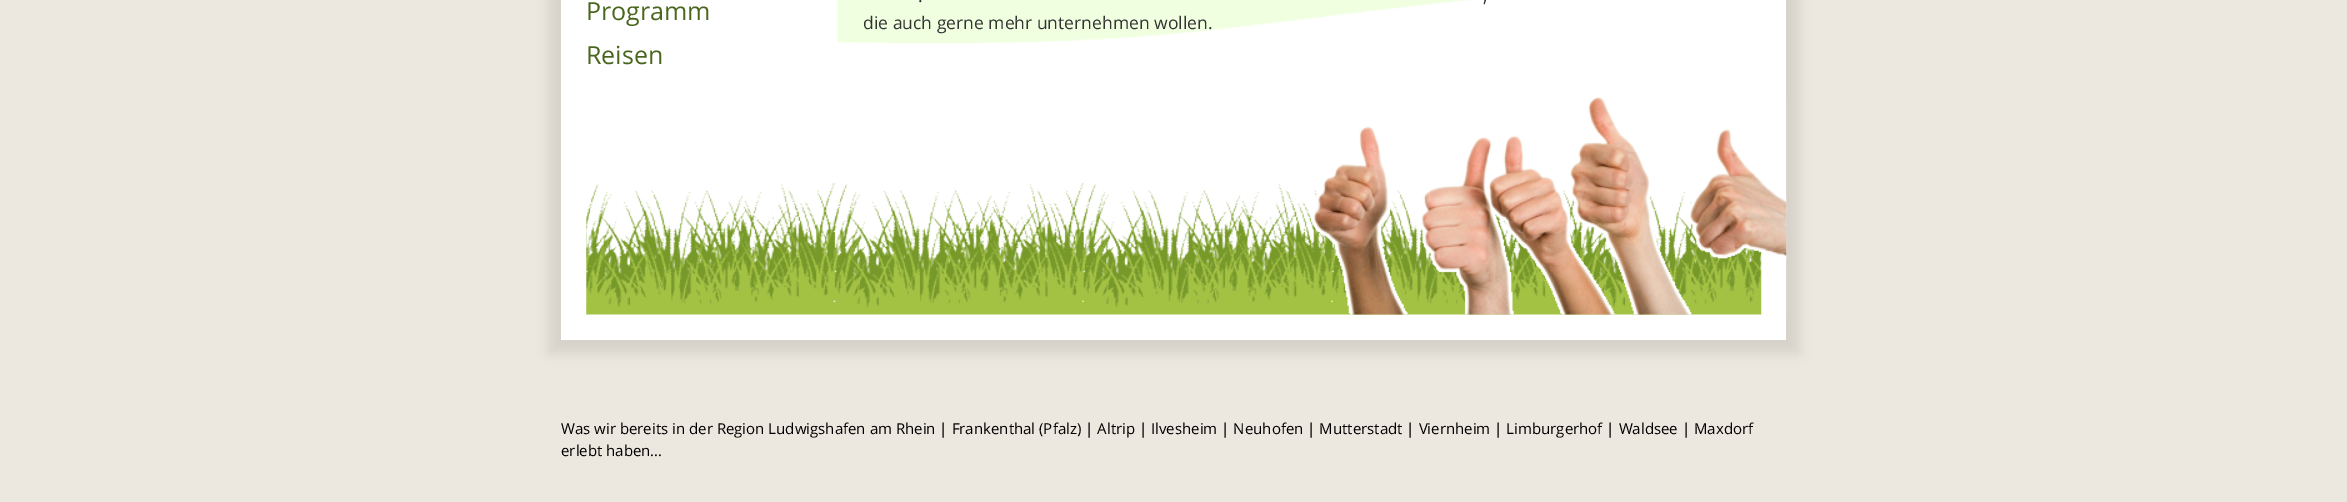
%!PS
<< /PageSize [2347 502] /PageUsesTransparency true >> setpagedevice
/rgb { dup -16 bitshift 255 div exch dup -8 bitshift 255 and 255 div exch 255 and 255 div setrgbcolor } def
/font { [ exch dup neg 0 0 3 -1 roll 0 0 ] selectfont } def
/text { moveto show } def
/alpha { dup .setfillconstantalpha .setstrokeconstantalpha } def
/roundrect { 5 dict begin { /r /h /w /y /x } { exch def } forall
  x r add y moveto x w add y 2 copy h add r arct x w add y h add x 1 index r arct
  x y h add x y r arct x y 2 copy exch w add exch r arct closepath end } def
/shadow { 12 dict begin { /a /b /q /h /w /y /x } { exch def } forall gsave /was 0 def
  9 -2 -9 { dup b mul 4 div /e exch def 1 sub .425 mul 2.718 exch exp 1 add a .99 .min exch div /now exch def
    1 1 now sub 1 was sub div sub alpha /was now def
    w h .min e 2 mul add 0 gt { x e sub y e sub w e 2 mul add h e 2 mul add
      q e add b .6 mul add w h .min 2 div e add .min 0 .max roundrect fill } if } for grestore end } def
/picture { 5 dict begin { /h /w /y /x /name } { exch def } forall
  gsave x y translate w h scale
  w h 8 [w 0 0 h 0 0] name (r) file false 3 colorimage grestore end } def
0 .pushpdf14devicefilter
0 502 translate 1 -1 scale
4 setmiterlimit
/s1 { /OpenSans-Regular 25 font 16#49661E rgb } def
/s2 { /OpenSans-Regular 17.5 font 16#333333 rgb } def
/s3 { /OpenSans-Regular 15 font 16#000000 rgb } def
16#EDE8DF rgb
0 0 2347 502 rectfill
16#000000 rgb
549 -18 1250 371 0 6 0.1 shadow
16#FFFFFF rgb
561 0 1225 340 rectfill
s1
(Programm) 586 20 text
(Reisen) 586 64 text
(pic1.raw) 837 0 918 44 picture
s2
(.) 918 2 text
(,) 1483 2 text
(die auch gerne mehr unternehmen wollen.) 863 29 text
(pic2.raw) 586 178 1176 137 picture
(pic3.raw) 1311 97 476 218 picture
s3
(Was wir bereits in der Region Ludwigshafen am Rhein | Frankenthal \(Pfalz\) | Altrip | Ilvesheim | Neuhofen | Mutterstadt | Viernheim | Limburgerhof | Waldsee | Maxdorf) 561 434 text
(erlebt haben...) 561 456 text
.poppdf14devicefilter showpage
